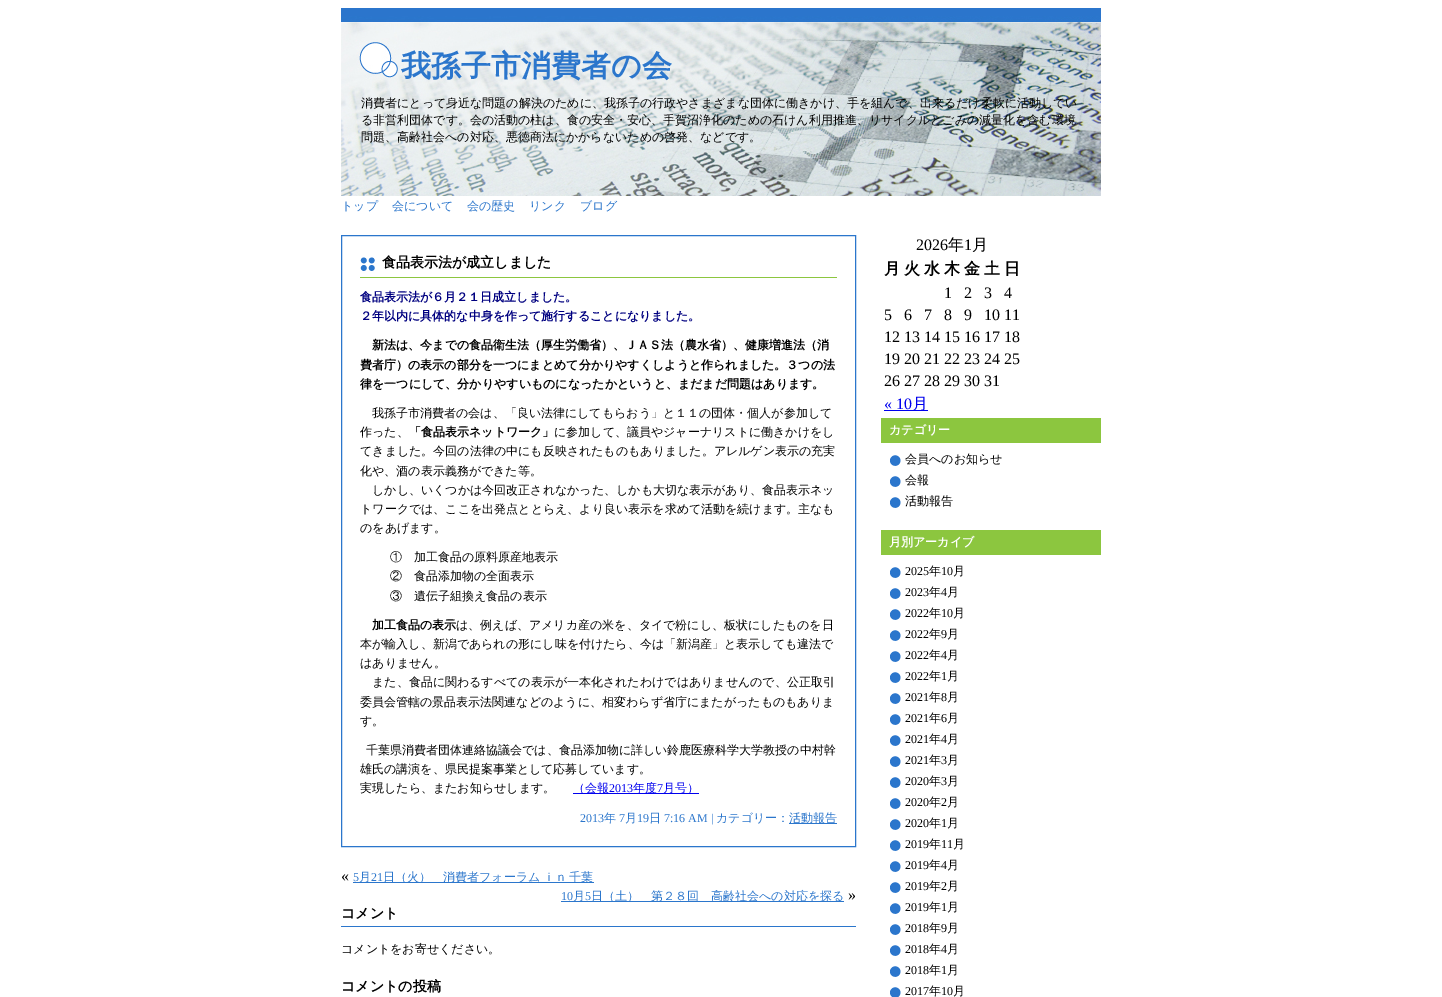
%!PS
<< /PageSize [1442 997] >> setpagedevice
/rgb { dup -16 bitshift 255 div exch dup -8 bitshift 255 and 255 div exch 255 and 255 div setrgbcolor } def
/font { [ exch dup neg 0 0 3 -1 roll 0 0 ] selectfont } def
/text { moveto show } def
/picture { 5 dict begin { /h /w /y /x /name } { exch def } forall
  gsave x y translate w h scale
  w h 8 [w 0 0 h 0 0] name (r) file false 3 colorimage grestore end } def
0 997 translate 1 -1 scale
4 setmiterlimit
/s1 { /WenQuanYiZenHei-Bold 30 font 16#2B76CC rgb } def
/s2 { /WenQuanYiZenHei-Medium 12 font 16#000000 rgb } def
/s3 { /WenQuanYiZenHei-Medium 12 font 16#2B76CC rgb } def
/s4 { /WenQuanYiZenHei-Bold 14 font 16#000000 rgb } def
/s5 { /WenQuanYiZenHei-Bold 12 font 16#000080 rgb } def
/s6 { /WenQuanYiZenHei-Bold 12 font 16#000000 rgb } def
/s7 { /WenQuanYiZenHei-Medium 12 font 16#0000EE rgb } def
/s8 { /LiberationSerif-Regular 12 font 16#0000EE rgb } def
/s9 { /LiberationSerif-Regular 12 font 16#2B76CC rgb } def
/s10 { /LiberationSerif-Regular 16 font 16#000000 rgb } def
/s11 { /WenQuanYiZenHei-Medium 16 font 16#000000 rgb } def
/s12 { /WenQuanYiZenHei-Bold 16 font 16#000000 rgb } def
/s13 { /LiberationSerif-Regular 16 font 16#0000EE rgb } def
/s14 { /WenQuanYiZenHei-Medium 16 font 16#0000EE rgb } def
/s15 { /WenQuanYiZenHei-Bold 12 font 16#FFFFFF rgb } def
/s16 { /LiberationSerif-Regular 12 font 16#000000 rgb } def
16#FFFFFF rgb
0 0 1442 997 rectfill
(pic1.raw) 341 8 760 188 picture
s1
(我孫子市消費者の会) 401 76 text
s2
(消費者にとって身近な問題の解決のために、我孫子の行政やさまざまな団体に働きかけ、手を組んで、出来るだけ柔軟に活動してい) 361 107 text
(る非営利団体です。会の活動の柱は、食の安全・安心、手賀沼浄化のための石けん利用推進、リサイクルとごみの減量化を含む環境) 361 124 text
(問題、高齢社会への対応、悪徳商法にかからないための啓発、などです。) 361 141 text
s3
(トップ) 341 210 text
(会について) 392 210 text
(会の歴史) 467 210 text
(リンク) 529 210 text
(ブログ) 580 210 text
341.5 235.5 514 611 rectstroke
(pic2.raw) 360 257 15 14 picture
16#8CC63F rgb
360 277 477 1 rectfill
s4
(食品表示法が成立しました) 382 267 text
s5
(食品表示法が６月２１日成立しました。) 360 301 text
(２年以内に具体的な中身を作って施行することになりました。) 360 320 text
s6
(新法は、今までの食品衛生法（厚生労働省）、ＪＡＳ法（農水省）、健康増進法（消) 372 349 text
(費者庁）の表示の部分を一つにまとめて分かりやすくしようと作られました。３つの法) 360 369 text
(律を一つにして、分かりやすいものになったかというと、まだまだ問題はあります。) 360 388 text
s2
(我孫子市消費者の会は、「良い法律にしてもらおう」と１１の団体・個人が参加して) 372 417 text
(作った、) 360 436 text
s6
(「食品表示ネットワーク」) 409 436 text
s2
(に参加して、議員やジャーナリストに働きかけをし) 554 436 text
(てきました。今回の法律の中にも反映されたものもありました。アレルゲン表示の充実) 360 455 text
(化や、酒の表示義務ができた等。) 360 475 text
(しかし、いくつかは今回改正されなかった、しかも大切な表示があり、食品表示ネッ) 372 494 text
(トワークでは、ここを出発点ととらえ、より良い表示を求めて活動を続けます。主なも) 360 513 text
(のをあげます。) 360 532 text
(①　加工食品の原料原産地表示) 390 561 text
(②　食品添加物の全面表示) 390 580 text
(③　遺伝子組換え食品の表示) 390 600 text
s6
(加工食品の表示) 372 629 text
s2
(は、例えば、アメリカ産の米を、タイで粉にし、板状にしたものを日) 456 629 text
(本が輸入し、新潟であられの形にし味を付けたら、今は「新潟産」と表示しても違法で) 360 648 text
(はありません。) 360 667 text
(また、食品に関わるすべての表示が一本化されたわけではありませんので、公正取引) 372 686 text
(委員会管轄の景品表示法関連などのように、相変わらず省庁にまたがったものもありま) 360 706 text
(す。) 360 725 text
(千葉県消費者団体連絡協議会では、食品添加物に詳しい鈴鹿医療科学大学教授の中村幹) 366 754 text
(雄氏の講演を、県民提案事業として応募しています。) 360 773 text
(実現したら、またお知らせします。) 360 792 text
16#0000EE rgb
573 793 126 1 rectfill
(（会報) 573 792 text
s8
(2013) 609 792 text
s7
(年度) 633 792 text
s8
(7) 657 792 text
s7
(月号）) 663 792 text
s9
(2013) 580 822 text
s3
(年) 604 822 text
s9
(7) 619 822 text
s3
(月) 625 822 text
s9
(19) 637 822 text
s3
(日) 649 822 text
s9
(7:16 AM |) 664 822 text
s3
(カテゴリー：) 716 822 text
789 823 48 1 rectfill
(活動報告) 789 822 text
s10
(«) 341 881 text
s9
(5) 353 881 text
353 882 241 1 rectfill
s3
(月) 359 881 text
s9
(21) 371 881 text
/WenQuanYiZenHei-Medium 12 font
383 881 moveto -1 0 32 (日（火）　消費者フォーラム ｉｎ 千葉) widthshow
s9
(10) 561 900 text
561 901 283 1 rectfill
s3
(月) 573 900 text
s9
(5) 585 900 text
s3
(日（土）　第２８回　高齢社会への対応を探る) 591 900 text
s10
(») 848 900 text
16#2B76CC rgb
341 926 515 1 rectfill
s4
(コメント) 341 918 text
s2
(コメントをお寄せください。) 341 953 text
s4
(コメントの投稿) 341 991 text
s10
(2026) 916 250 text
s11
(年) 948 250 text
s10
(1) 964 250 text
s11
(月) 972 250 text
s12
(月) 884 274 text
(火) 904 274 text
(水) 924 274 text
(木) 944 274 text
(金) 964 274 text
(土) 984 274 text
(日) 1004 274 text
s10
(1) 944 298 text
(2) 964 298 text
(3) 984 298 text
(4) 1004 298 text
(5) 884 320 text
(6) 904 320 text
(7) 924 320 text
(8) 944 320 text
(9) 964 320 text
(10 11) 984 320 text
(12 13 14 15 16 17 18) 884 342 text
(19 20 21 22 23 24 25) 884 364 text
(26 27 28 29 30 31) 884 386 text
s13
(« 10) 884 409 text
884 410 44 1 rectfill
s14
(月) 912 409 text
16#8CC63F rgb
881 418 220 25 rectfill
s15
(カテゴリー) 889 434 text
(pic3.raw) 890 455 11 11 picture
s2
(会員へのお知らせ) 905 463 text
(pic3.raw) 890 476 11 11 picture
(会報) 905 484 text
(pic3.raw) 890 497 11 11 picture
(活動報告) 905 505 text
16#8CC63F rgb
881 530 220 25 rectfill
s15
(月別アーカイブ) 889 546 text
(pic3.raw) 890 567 11 11 picture
s16
(2025) 905 575 text
s2
(年) 929 575 text
s16
(10) 941 575 text
s2
(月) 953 575 text
(pic3.raw) 890 588 11 11 picture
s16
(2023) 905 596 text
s2
(年) 929 596 text
s16
(4) 941 596 text
s2
(月) 947 596 text
(pic3.raw) 890 609 11 11 picture
s16
(2022) 905 617 text
s2
(年) 929 617 text
s16
(10) 941 617 text
s2
(月) 953 617 text
(pic3.raw) 890 630 11 11 picture
s16
(2022) 905 638 text
s2
(年) 929 638 text
s16
(9) 941 638 text
s2
(月) 947 638 text
(pic3.raw) 890 651 11 11 picture
s16
(2022) 905 659 text
s2
(年) 929 659 text
s16
(4) 941 659 text
s2
(月) 947 659 text
(pic3.raw) 890 672 11 11 picture
s16
(2022) 905 680 text
s2
(年) 929 680 text
s16
(1) 941 680 text
s2
(月) 947 680 text
(pic3.raw) 890 693 11 11 picture
s16
(2021) 905 701 text
s2
(年) 929 701 text
s16
(8) 941 701 text
s2
(月) 947 701 text
(pic3.raw) 890 714 11 11 picture
s16
(2021) 905 722 text
s2
(年) 929 722 text
s16
(6) 941 722 text
s2
(月) 947 722 text
(pic3.raw) 890 735 11 11 picture
s16
(2021) 905 743 text
s2
(年) 929 743 text
s16
(4) 941 743 text
s2
(月) 947 743 text
(pic3.raw) 890 756 11 11 picture
s16
(2021) 905 764 text
s2
(年) 929 764 text
s16
(3) 941 764 text
s2
(月) 947 764 text
(pic3.raw) 890 777 11 11 picture
s16
(2020) 905 785 text
s2
(年) 929 785 text
s16
(3) 941 785 text
s2
(月) 947 785 text
(pic3.raw) 890 798 11 11 picture
s16
(2020) 905 806 text
s2
(年) 929 806 text
s16
(2) 941 806 text
s2
(月) 947 806 text
(pic3.raw) 890 819 11 11 picture
s16
(2020) 905 827 text
s2
(年) 929 827 text
s16
(1) 941 827 text
s2
(月) 947 827 text
(pic3.raw) 890 840 11 11 picture
s16
(2019) 905 848 text
s2
(年) 929 848 text
s16
(11) 941 848 text
s2
(月) 953 848 text
(pic3.raw) 890 861 11 11 picture
s16
(2019) 905 869 text
s2
(年) 929 869 text
s16
(4) 941 869 text
s2
(月) 947 869 text
(pic3.raw) 890 882 11 11 picture
s16
(2019) 905 890 text
s2
(年) 929 890 text
s16
(2) 941 890 text
s2
(月) 947 890 text
(pic3.raw) 890 903 11 11 picture
s16
(2019) 905 911 text
s2
(年) 929 911 text
s16
(1) 941 911 text
s2
(月) 947 911 text
(pic3.raw) 890 924 11 11 picture
s16
(2018) 905 932 text
s2
(年) 929 932 text
s16
(9) 941 932 text
s2
(月) 947 932 text
(pic3.raw) 890 945 11 11 picture
s16
(2018) 905 953 text
s2
(年) 929 953 text
s16
(4) 941 953 text
s2
(月) 947 953 text
(pic3.raw) 890 966 11 11 picture
s16
(2018) 905 974 text
s2
(年) 929 974 text
s16
(1) 941 974 text
s2
(月) 947 974 text
(pic4.raw) 890 987 11 10 picture
s16
(2017) 905 995 text
s2
(年) 929 995 text
s16
(10) 941 995 text
s2
(月) 953 995 text
showpage
